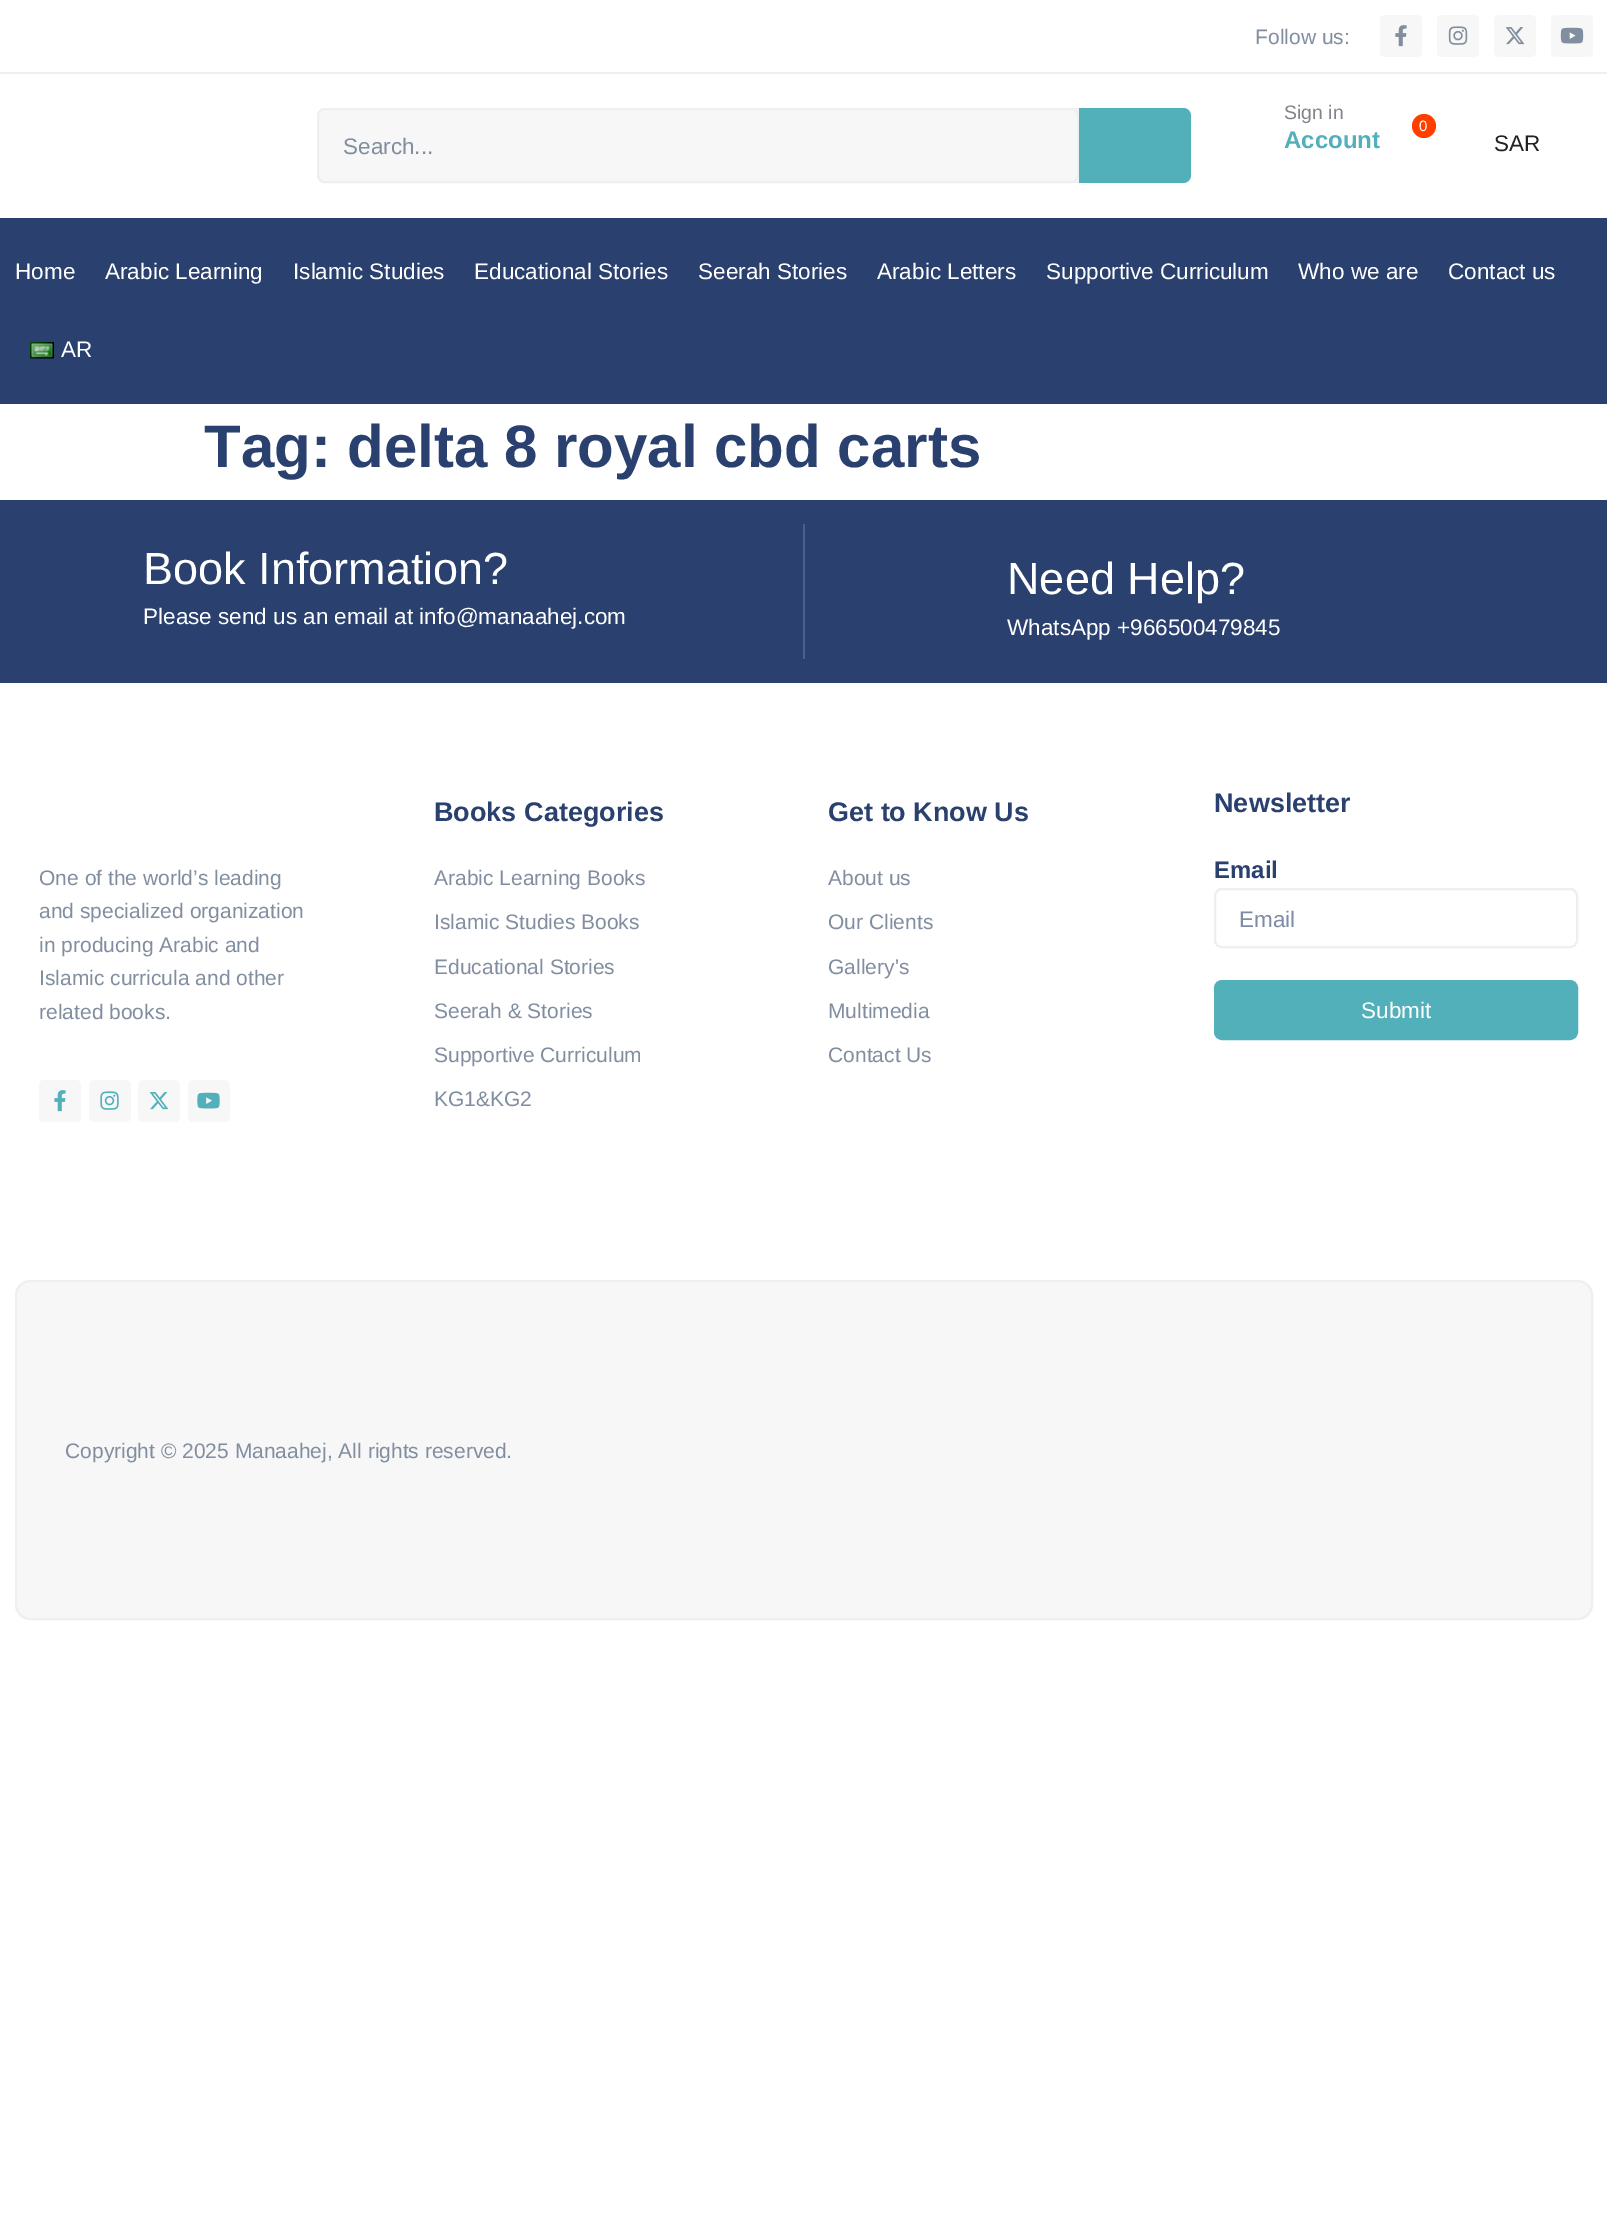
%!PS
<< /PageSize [1607 2224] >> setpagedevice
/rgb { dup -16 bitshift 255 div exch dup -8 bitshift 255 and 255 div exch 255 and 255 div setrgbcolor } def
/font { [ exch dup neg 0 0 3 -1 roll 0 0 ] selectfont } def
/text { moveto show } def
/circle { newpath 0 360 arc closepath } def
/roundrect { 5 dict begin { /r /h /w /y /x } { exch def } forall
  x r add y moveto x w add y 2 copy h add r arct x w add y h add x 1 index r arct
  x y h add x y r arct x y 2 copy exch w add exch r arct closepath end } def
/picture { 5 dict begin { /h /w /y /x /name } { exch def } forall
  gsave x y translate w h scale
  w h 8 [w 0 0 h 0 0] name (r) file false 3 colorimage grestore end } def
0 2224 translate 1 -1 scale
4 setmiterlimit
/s1 { /LiberationSans-Regular 21 font 16#818EA0 rgb } def
/s2 { /LiberationSans-Regular 22.5 font 16#818EA0 rgb } def
/s3 { /LiberationSans-Regular 19.5 font 16#82848C rgb } def
/s4 { /LiberationSans-Bold 24 font 16#52B0BA rgb } def
/s5 { /LiberationSans-Regular 15 font 16#FFFFFF rgb } def
/s6 { /LiberationSans-Regular 22.5 font 16#212121 rgb } def
/s7 { /LiberationSans-Regular 22.5 font 16#FFFFFF rgb } def
/s8 { /LiberationSans-Bold 60 font 16#2A406E rgb } def
/s9 { /LiberationSans-Regular 45 font 16#FFFFFF rgb } def
/s10 { /LiberationSans-Bold 27 font 16#2A406E rgb } def
/s11 { /LiberationSans-Bold 24 font 16#2A406E rgb } def
/s12 { /LiberationSans-Regular 22.5 font 16#7F8CA8 rgb } def
16#FFFFFF rgb
0 0 1607 2224 rectfill
16#ECF0F0 rgb
0 72 1607 2 rectfill
s1
(Follow us:) 1255 44 text
16#F7F7F7 rgb
1380 15 42 42 5 roundrect fill
(pic1.raw) 1395 25 12 22 picture
1437 15 42 42 5 roundrect fill
(pic2.raw) 1448 26 20 19 picture
1494 15 42 42 5 roundrect fill
(pic3.raw) 1505 27 20 18 picture
1551 15 42 42 5 roundrect fill
(pic4.raw) 1560 27 24 17 picture
16#F1F2F3 rgb
317 108 874 75 8 roundrect fill
16#F7F7F7 rgb
318 109 760 73 7 roundrect gsave fill grestore
16#ECF0F0 rgb
2 setlinewidth
stroke
s2
(Search...) 343 154 text
16#52B0BA rgb
1079 108 moveto 1183 108 lineto 1187.5 108 1191 111.5 1191 116 curveto 1191 175 lineto 1191 179.5 1187.5 183 1183 183 curveto 1079 183 lineto closepath fill
s3
(Sign in) 1284 119 text
s4
(Account) 1284 148 text
16#FF3F00 rgb
1424 126 12 circle fill
s5
(0) 1419 131 text
s6
(SAR) 1494 151 text
16#2A406E rgb
0 218 1607 186 rectfill
s7
(Home) 15 279 text
(Arabic Learning) 105 279 text
(Islamic Studies) 293 279 text
(Educational Stories) 474 279 text
(Seerah Stories) 698 279 text
(Arabic Letters) 877 279 text
(Supportive Curriculum) 1046 279 text
(Who we are) 1298 279 text
(Contact us) 1448 279 text
(pic5.raw) 30 342 24 17 picture
(AR) 61 357 text
s8
(Tag: delta 8 royal cbd carts) 204 467 text
0 500 1607 183 rectfill
16#4E6087 rgb
803 524 2 135 rectfill
s9
(Book Information?) 143 584 text
s7
(Please send us an email at info@manaahej.com) 143 624 text
s9
(Need Help?) 1007 594 text
s7
(WhatsApp +966500479845) 1007 635 text
s1
(One of the world’s leading) 39 885 text
(and specialized organization) 39 918 text
(in producing Arabic and) 39 952 text
(Islamic curricula and other) 39 985 text
(related books.) 39 1019 text
16#F7F7F7 rgb
39 1080 42 42 5 roundrect fill
(pic6.raw) 54 1090 12 22 picture
89 1080 42 42 5 roundrect fill
(pic7.raw) 100 1091 19 19 picture
138 1080 42 42 5 roundrect fill
(pic8.raw) 149 1092 20 18 picture
188 1080 42 42 5 roundrect fill
(pic9.raw) 197 1092 23 17 picture
s10
(Books Categories) 434 821 text
s1
(Arabic Learning Books) 434 885 text
(Islamic Studies Books) 434 929 text
(Educational Stories) 434 974 text
(Seerah & Stories) 434 1018 text
(Supportive Curriculum) 434 1062 text
(KG1&KG2) 434 1106 text
s10
(Get to Know Us) 828 821 text
s1
(About us) 828 885 text
(Our Clients) 828 929 text
(Gallery's) 828 974 text
(Multimedia) 828 1018 text
(Contact Us) 828 1062 text
s10
(Newsletter) 1214 812 text
s11
(Email) 1214 878 text
16#ECF0F0 rgb
1215 889 362 58 7 roundrect stroke
s12
(Email) 1239 927 text
16#52B0BA rgb
1215 981 362 58 7 roundrect gsave fill grestore
stroke
s7
(Submit) 1361 1018 text
16#F7F7F7 rgb
16 1281 1576 338 14 roundrect gsave fill grestore
16#ECF0F0 rgb
stroke
s1
(Copyright © 2025 Manaahej, All rights reserved.) 65 1458 text
showpage
